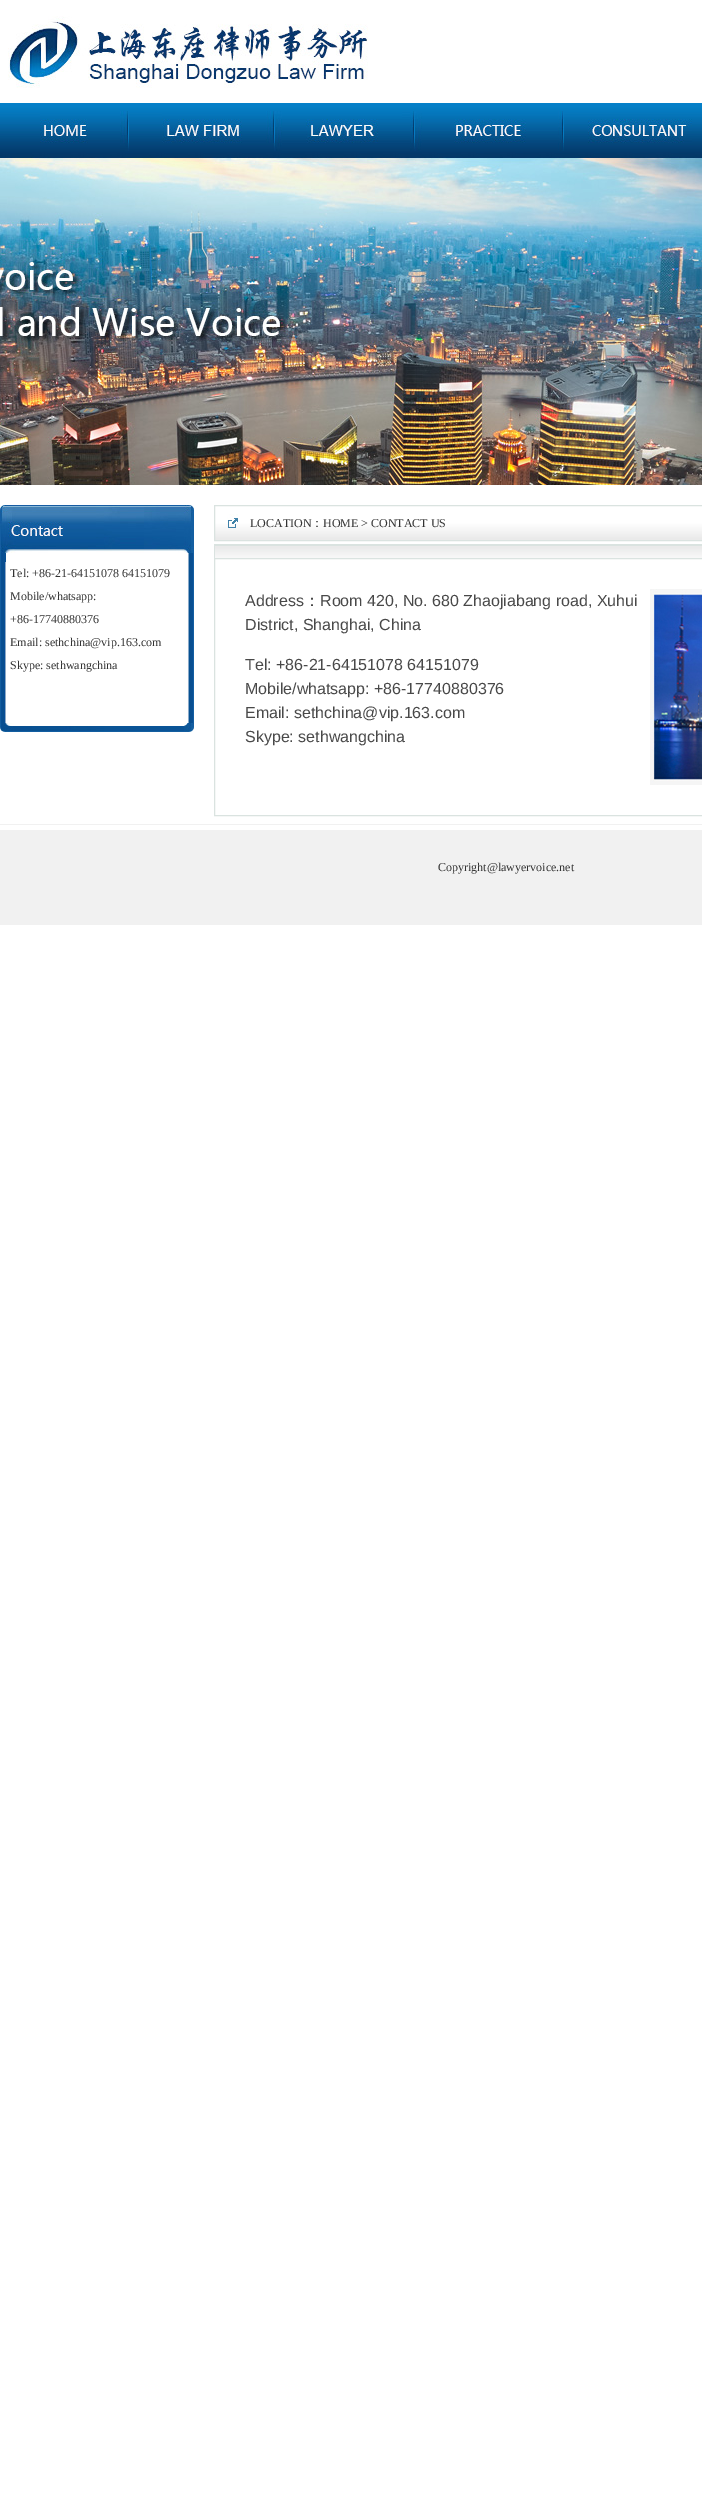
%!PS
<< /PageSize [702 2508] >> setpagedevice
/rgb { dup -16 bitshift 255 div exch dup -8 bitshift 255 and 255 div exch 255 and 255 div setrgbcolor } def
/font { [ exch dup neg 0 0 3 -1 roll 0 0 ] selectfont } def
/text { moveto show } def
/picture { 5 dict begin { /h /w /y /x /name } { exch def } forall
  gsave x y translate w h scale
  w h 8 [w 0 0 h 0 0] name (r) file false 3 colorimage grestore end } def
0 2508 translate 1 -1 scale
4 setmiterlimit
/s1 { /LiberationSerif-Regular 12 font 16#333333 rgb } def
/s2 { /WenQuanYiZenHei-Medium 12 font 16#333333 rgb } def
/s3 { /LiberationSans-Regular 16 font 16#494949 rgb } def
/s4 { /WenQuanYiZenHei-Medium 16 font 16#494949 rgb } def
16#FFFFFF rgb
0 0 702 2508 rectfill
(pic1.raw) 8 16 360 72 picture
(pic2.raw) 0 103 702 54 picture
(pic3.raw) 40 111 89 40 picture
(pic4.raw) 162 111 112 32 picture
(pic5.raw) 274 111 140 40 picture
(pic6.raw) 414 111 150 40 picture
(pic7.raw) 588 119 104 24 picture
(pic8.raw) 0 157 702 328 picture
(pic9.raw) 0 505 194 48 picture
(pic10.raw) 0 553 194 170 picture
16#094F93 rgb
3 553 3 9 rectfill
s1
(Tel: +86-21-64151078 64151079) 10 577 text
(Mobile/whatsapp:) 10 600 text
(+86-17740880376) 10 623 text
(Email: sethchina@vip.163.com) 10 646 text
(Skype: sethwangchina) 10 669 text
(pic11.raw) 0 723 194 9 picture
(pic12.raw) 215 506 487 34 picture
16#DAE3E0 rgb
214.5 505.5 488 35 rectstroke
(pic13.raw) 227 514 11 16 picture
s1
(LOCATION) 250 527 text
s2
(：) 311 527 text
s1
(HOME > CONTACT US) 323 527 text
(pic14.raw) 215 545 487 13 picture
16#DAE3E0 rgb
214 544 488 1 rectfill
214 544 1 14 rectfill
214.5 558.5 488 257 rectstroke
s3
(Address) 245 606 text
s4
(：) 304 606 text
s3
(Room 420, No. 680 Zhaojiabang road, Xuhui) 320 606 text
(District, Shanghai, China) 245 630 text
(Tel: +86-21-64151078 64151079) 245 670 text
(Mobile/whatsapp: +86-17740880376) 245 694 text
(Email: sethchina@vip.163.com) 245 718 text
(Skype: sethwangchina) 245 742 text
(pic15.raw) 650 589 52 196 picture
16#F1F1F1 rgb
0 824 702 1 rectfill
0 830 702 95 rectfill
s1
(Copyright@lawyervoice.net) 438 871 text
showpage
